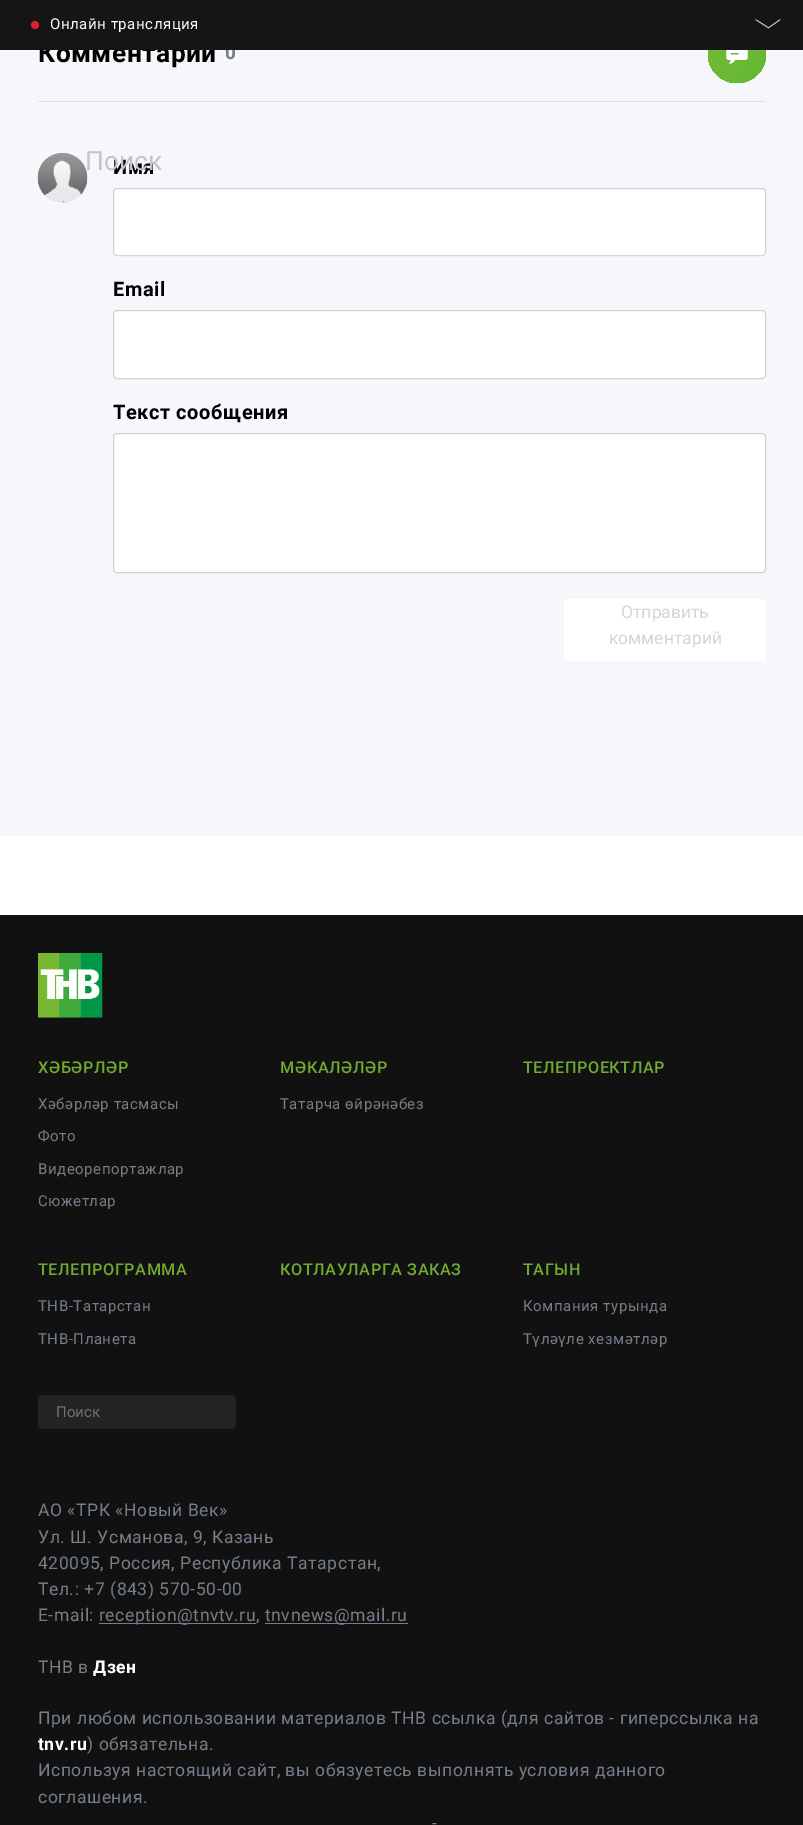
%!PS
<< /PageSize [803 1825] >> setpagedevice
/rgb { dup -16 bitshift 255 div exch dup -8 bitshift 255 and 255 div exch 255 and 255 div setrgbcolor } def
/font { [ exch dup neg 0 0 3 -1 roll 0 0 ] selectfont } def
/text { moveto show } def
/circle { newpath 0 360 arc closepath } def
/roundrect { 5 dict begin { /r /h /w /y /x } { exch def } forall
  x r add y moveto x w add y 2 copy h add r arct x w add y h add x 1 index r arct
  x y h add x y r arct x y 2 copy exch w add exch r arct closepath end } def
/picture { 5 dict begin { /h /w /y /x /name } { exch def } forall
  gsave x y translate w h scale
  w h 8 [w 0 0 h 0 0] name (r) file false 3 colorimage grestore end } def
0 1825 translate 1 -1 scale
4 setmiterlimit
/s1 { /Roboto-Regular 17.5 font 16#D4D5D9 rgb } def
/s2 { /Roboto-Regular 26.25 font 16#C3C4C7 rgb } def
/s3 { /Roboto-Regular 15 font 16#727272 rgb } def
16#FFFFFF rgb
0 0 803 1825 rectfill
16#F6F7FB rgb
0 50 803 786 rectfill
/Roboto-Bold 26.25 font
16#000000 rgb
38 62 moveto 0.55 0 (Комментарии) ashow
/Roboto-Bold 19 font
16#747E89 rgb
225 59 moveto 0.55 0 (0) ashow
gsave 708 24 58 59 29 roundrect clip newpath
<< /ShadingType 2 /ColorSpace /DeviceRGB /Coords [708 23 766 83] /Extend [true true] /Function << /FunctionType 2 /Domain [0 1] /C0 [0.475 0.722 0.2] /C1 [0.388 0.722 0.2] /N 1 >> >> shfill grestore
16#151515 rgb
0 0 803 50 rectfill
16#DD1D34 rgb
35 25 4 circle fill
/Roboto-Regular 15 font
16#FFFFFF rgb
50 29 moveto 0.55 0 (Онлайн трансляция) ashow
(pic1.raw) 755 19 26 10 picture
16#DCDFE4 rgb
38 101 728 1 rectfill
(pic2.raw) 726 50 22 14 picture
(pic3.raw) 37 152 51 51 picture
/Roboto-Bold 20 font
16#000000 rgb
113 174 moveto 0.55 0 (Имя) ashow
16#FFFFFF rgb
113.5 188.5 652 67 3.5 roundrect gsave fill grestore
16#D3D3D3 rgb
stroke
16#000000 rgb
113 296 moveto 0.55 0 (Email) ashow
16#FFFFFF rgb
113.5 310.5 652 68 3.5 roundrect gsave fill grestore
16#D3D3D3 rgb
stroke
16#000000 rgb
113 419 moveto 0.55 0 (Текст сообщения) ashow
16#FFFFFF rgb
113.5 433.5 652 139 3.5 roundrect gsave fill grestore
16#D3D3D3 rgb
stroke
16#FFFFFF rgb
564 599 202 62 4 roundrect fill
s1
(Отправить) 621 618 text
(комментарий) 609 644 text
s2
(Поиск) 85 170 text
16#111111 rgb
0 915 803 910 rectfill
(pic4.raw) 38 953 65 65 picture
/Roboto-Medium 16.25 font
16#71AA30 rgb
38 1073 moveto 0.55 0 (ХӘБӘРЛӘР) ashow
/Roboto-Regular 15 font
16#747E89 rgb
38 1109 moveto 0.55 0 (Хәбәрләр тасмасы) ashow
38 1141 moveto 0.55 0 (Фото) ashow
38 1174 moveto 0.55 0 (Видеорепортажлар) ashow
38 1206 moveto 0.55 0 (Cюжетлар) ashow
/Roboto-Medium 16.25 font
16#71AA30 rgb
280 1073 moveto 0.55 0 (МӘКАЛӘЛӘР) ashow
/Roboto-Regular 15 font
16#747E89 rgb
280 1109 moveto 0.55 0 (Татарча өйрәнәбез) ashow
/Roboto-Medium 16.25 font
16#71AA30 rgb
523 1073 moveto 0.55 0 (ТЕЛЕПРОЕКТЛАР) ashow
38 1275 moveto 0.55 0 (ТЕЛЕПРОГРАММА) ashow
/Roboto-Regular 15 font
16#747E89 rgb
38 1311 moveto 0.55 0 (ТНВ-Татарстан) ashow
38 1344 moveto 0.55 0 (ТНВ-Планета) ashow
/Roboto-Medium 16.25 font
16#71AA30 rgb
280 1275 moveto 0.55 0 (КОТЛАУЛАРГА ЗАКАЗ) ashow
523 1275 moveto 0.55 0 (ТАГЫН) ashow
/Roboto-Regular 15 font
16#747E89 rgb
523 1311 moveto 0.55 0 (Компания турында) ashow
523 1344 moveto 0.55 0 (Түләүле хезмәтләр) ashow
16#232323 rgb
38 1395 198 34 4 roundrect fill
s3
(Поиск) 56 1417 text
/Roboto-Regular 17.5 font
16#747E89 rgb
38 1516 moveto 0.55 0 (АО «ТРК «Новый Век») ashow
38 1543 moveto 0.55 0 (Ул. Ш. Усманова, 9, Казань) ashow
38 1569 moveto 0.55 0 (420095, Россия, Республика Татарстан,) ashow
38 1595 moveto 0.55 0 (Тел.: +7 \(843\) 570-50-00) ashow
38 1621 moveto 0.55 0 (E-mail:) ashow
99 1623 157 1 rectfill
99 1621 moveto 0.55 0 (reception@tnvtv.ru,) ashow
265 1623 143 1 rectfill
265 1621 moveto 0.55 0 (tnvnews@mail.ru) ashow
38 1673 moveto 0.55 0 (ТНВ в) ashow
/Roboto-Bold 17.5 font
16#FFFFFF rgb
93 1673 moveto 0.55 0 (Дзен) ashow
/Roboto-Regular 17.5 font
16#747E89 rgb
38 1724 moveto 0.55 0 (При любом использовании материалов ТНВ ссылка \(для сайтов - гиперссылка на) ashow
/Roboto-Bold 17.5 font
16#FFFFFF rgb
38 1750 moveto 0.55 0 (tnv.ru) ashow
/Roboto-Regular 17.5 font
16#747E89 rgb
87 1750 moveto 0.55 0 (\) обязательна.) ashow
38 1776 moveto 0.55 0 (Используя настоящий сайт, вы обязуетесь выполнять условия данного) ashow
38 1803 moveto 0.55 0 (соглашения.) ashow
432 1829 moveto 0.55 0 (-) ashow
showpage
